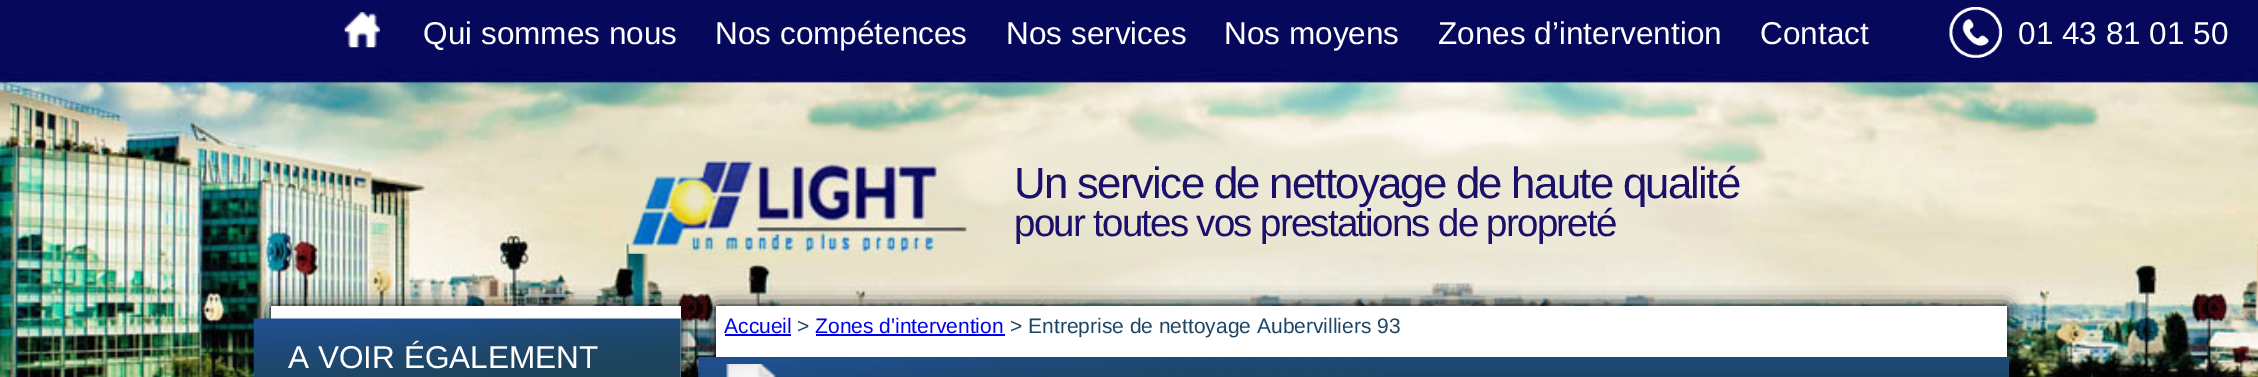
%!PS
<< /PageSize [2258 377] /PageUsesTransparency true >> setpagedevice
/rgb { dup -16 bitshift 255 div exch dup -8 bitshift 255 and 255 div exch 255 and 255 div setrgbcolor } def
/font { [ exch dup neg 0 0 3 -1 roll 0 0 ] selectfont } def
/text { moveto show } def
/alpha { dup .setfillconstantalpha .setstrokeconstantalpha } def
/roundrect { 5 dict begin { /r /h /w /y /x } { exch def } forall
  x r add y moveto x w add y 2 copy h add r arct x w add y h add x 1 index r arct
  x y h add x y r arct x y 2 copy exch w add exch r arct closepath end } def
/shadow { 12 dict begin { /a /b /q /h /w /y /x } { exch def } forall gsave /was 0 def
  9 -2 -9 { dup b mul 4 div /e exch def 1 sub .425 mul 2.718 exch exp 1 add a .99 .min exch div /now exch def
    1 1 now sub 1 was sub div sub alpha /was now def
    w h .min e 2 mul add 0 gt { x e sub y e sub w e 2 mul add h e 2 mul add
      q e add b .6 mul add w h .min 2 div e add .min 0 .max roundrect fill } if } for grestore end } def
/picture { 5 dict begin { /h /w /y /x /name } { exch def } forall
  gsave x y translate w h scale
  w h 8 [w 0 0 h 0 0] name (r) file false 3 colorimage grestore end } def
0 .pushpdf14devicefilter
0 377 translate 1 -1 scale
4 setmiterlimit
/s1 { /LiberationSans-Regular 31.5 font 16#FFFFFF rgb } def
/s2 { /LiberationSans-Regular 21 font 16#0000EE rgb } def
/s3 { /LiberationSans-Regular 21 font 16#1D4666 rgb } def
16#FFFFFF rgb
0 0 2258 377 rectfill
(pic1.raw) 0 0 2258 377 picture
(pic2.raw) 344 12 36 36 picture
s1
(Qui sommes nous) 423 44 text
(Nos compétences) 715 44 text
(Nos services) 1006 44 text
(Nos moyens) 1224 44 text
(Zones d’intervention) 1438 44 text
(Contact) 1760 44 text
(pic3.raw) 1949 7 53 51 picture
(01 43 81 01 50) 2018 44 text
(pic4.raw) 628 161 340 93 picture
/LiberationSans-Regular 43.75 font
16#1A1069 rgb
1014 198 moveto -1.75 0 (Un service de nettoyage de haute qualité) ashow
/LiberationSans-Regular 38.5 font
1014 236 moveto -1.75 0 (pour toutes vos prestations de propreté) ashow
16#000000 rgb
716 306 1291 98 0 9 1 shadow
16#FFFFFF rgb
716 306 1291 51 rectfill
s2
(Accueil) 724 333 text
725 334 66 2 rectfill
s3
(>) 797 333 text
s2
(Zones d'intervention) 815 333 text
816 334 189 2 rectfill
s3
(> Entreprise de nettoyage Aubervilliers 93) 1010 333 text
(pic5.raw) 698 357 1311 20 picture
(pic6.raw) 726 364 50 13 picture
16#000000 rgb
271 306 410 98 0 9 1 shadow
16#FFFFFF rgb
271 306 410 71 rectfill
(pic7.raw) 253 318 428 59 picture
s1
(A VOIR ÉGALEMENT) 288 368 text
.poppdf14devicefilter showpage
